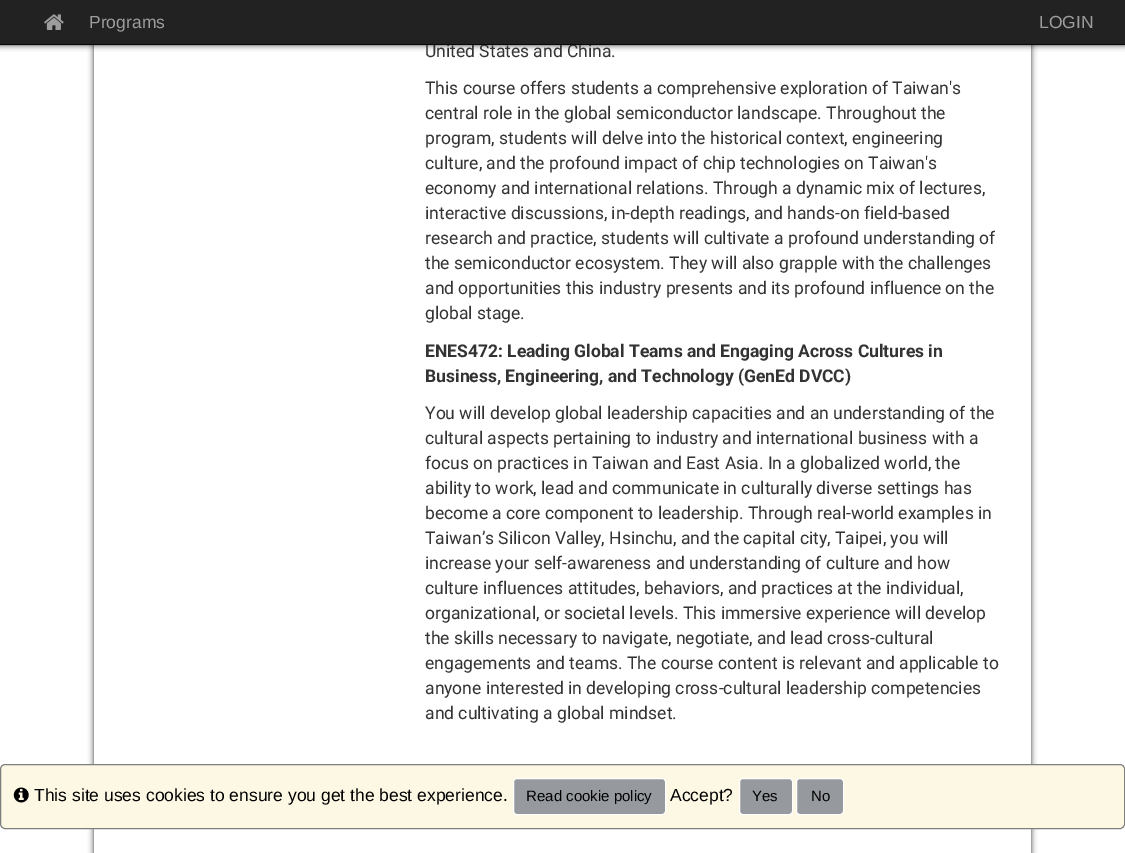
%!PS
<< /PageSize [1125 853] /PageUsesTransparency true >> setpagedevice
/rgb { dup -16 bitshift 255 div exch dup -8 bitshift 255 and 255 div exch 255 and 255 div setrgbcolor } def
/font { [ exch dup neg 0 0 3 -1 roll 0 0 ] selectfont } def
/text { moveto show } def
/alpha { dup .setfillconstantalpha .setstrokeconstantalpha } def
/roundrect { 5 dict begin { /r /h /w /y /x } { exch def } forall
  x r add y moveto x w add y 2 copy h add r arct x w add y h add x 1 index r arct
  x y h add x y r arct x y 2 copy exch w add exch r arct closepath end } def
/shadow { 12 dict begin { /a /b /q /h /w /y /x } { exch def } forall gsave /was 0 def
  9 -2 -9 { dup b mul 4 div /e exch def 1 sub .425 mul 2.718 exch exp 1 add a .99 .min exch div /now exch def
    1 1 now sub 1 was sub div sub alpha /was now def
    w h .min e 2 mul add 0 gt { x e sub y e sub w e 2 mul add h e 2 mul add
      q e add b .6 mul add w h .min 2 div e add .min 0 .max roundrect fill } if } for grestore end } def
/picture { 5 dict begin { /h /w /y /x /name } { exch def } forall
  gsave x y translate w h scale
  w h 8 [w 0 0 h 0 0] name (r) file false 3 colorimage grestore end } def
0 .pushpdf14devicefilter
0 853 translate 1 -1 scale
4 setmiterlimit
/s1 { /Roboto-Regular 17.5 font 16#333333 rgb } def
/s2 { /LiberationSans-Regular 17.5 font 16#9D9D9D rgb } def
/s3 { /Roboto-Bold 17.5 font 16#333333 rgb } def
/s4 { /LiberationSans-Regular 17.5 font 16#000000 rgb } def
/s5 { /LiberationSans-Regular 15 font 16#000000 rgb } def
16#FFFFFF rgb
0 0 1125 853 rectfill
16#000000 rgb
0 0 1125 45 0 3 0.8 shadow
gsave
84 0 moveto 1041 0 lineto 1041 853 lineto 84 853 lineto closepath 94 -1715 moveto 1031 -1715 lineto 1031 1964 lineto 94 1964 lineto closepath eoclip newpath
94 -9 937 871 0 3 0.8 shadow
grestore
s1
(United States and China.) 425 57 text
16#222222 rgb
0 0 1125 44 rectfill
16#080808 rgb
0 44 1125 1 rectfill
(pic1.raw) 44 14 20 16 picture
s2
(Programs) 89 28 text
(LOGIN) 1039 28 text
s1
(This course offers students a comprehensive exploration of Taiwan's) 425 94 text
(central role in the global semiconductor landscape. Throughout the) 425 119 text
(program, students will delve into the historical context, engineering) 425 144 text
(culture, and the profound impact of chip technologies on Taiwan's) 425 169 text
(economy and international relations. Through a dynamic mix of lectures,) 425 194 text
(interactive discussions, in-depth readings, and hands-on field-based) 425 219 text
(research and practice, students will cultivate a profound understanding of) 425 244 text
(the semiconductor ecosystem. They will also grapple with the challenges) 425 269 text
(and opportunities this industry presents and its profound influence on the) 425 294 text
(global stage.) 425 319 text
s3
(ENES472: Leading Global Teams and Engaging Across Cultures in) 425 357 text
(Business, Engineering, and Technology \(GenEd DVCC\)) 425 382 text
s1
(You will develop global leadership capacities and an understanding of the) 425 419 text
(cultural aspects pertaining to industry and international business with a) 425 444 text
(focus on practices in Taiwan and East Asia. In a globalized world, the) 425 469 text
(ability to work, lead and communicate in culturally diverse settings has) 425 494 text
(become a core component to leadership. Through real-world examples in) 425 519 text
(Taiwan’s Silicon Valley, Hsinchu, and the capital city, Taipei, you will) 425 544 text
(increase your self-awareness and understanding of culture and how) 425 569 text
(culture influences attitudes, behaviors, and practices at the individual,) 425 594 text
(organizational, or societal levels. This immersive experience will develop) 425 619 text
(the skills necessary to navigate, negotiate, and lead cross-cultural) 425 644 text
(engagements and teams. The course content is relevant and applicable to) 425 669 text
(anyone interested in developing cross-cultural leadership competencies) 425 694 text
(and cultivating a global mindset.) 425 719 text
16#FCF8E3 rgb
0.5 764.5 1124 64 4.5 roundrect gsave fill grestore
16#808080 rgb
stroke
(pic2.raw) 13 787 16 16 picture
s4
(This site uses cookies to ensure you get the best experience.) 34 801 text
16#969A9E rgb
513.5 778.5 152 36 3.5 roundrect gsave fill grestore
16#FFFFFF rgb
stroke
s5
(Read cookie policy) 526 801 text
s4
(Accept?) 670 801 text
16#969A9E rgb
739.5 778.5 53 36 3.5 roundrect gsave fill grestore
16#FFFFFF rgb
stroke
s5
(Yes) 752 801 text
16#969A9E rgb
796.5 778.5 47 36 3.5 roundrect gsave fill grestore
16#FFFFFF rgb
stroke
s5
(No) 811 801 text
.poppdf14devicefilter showpage
